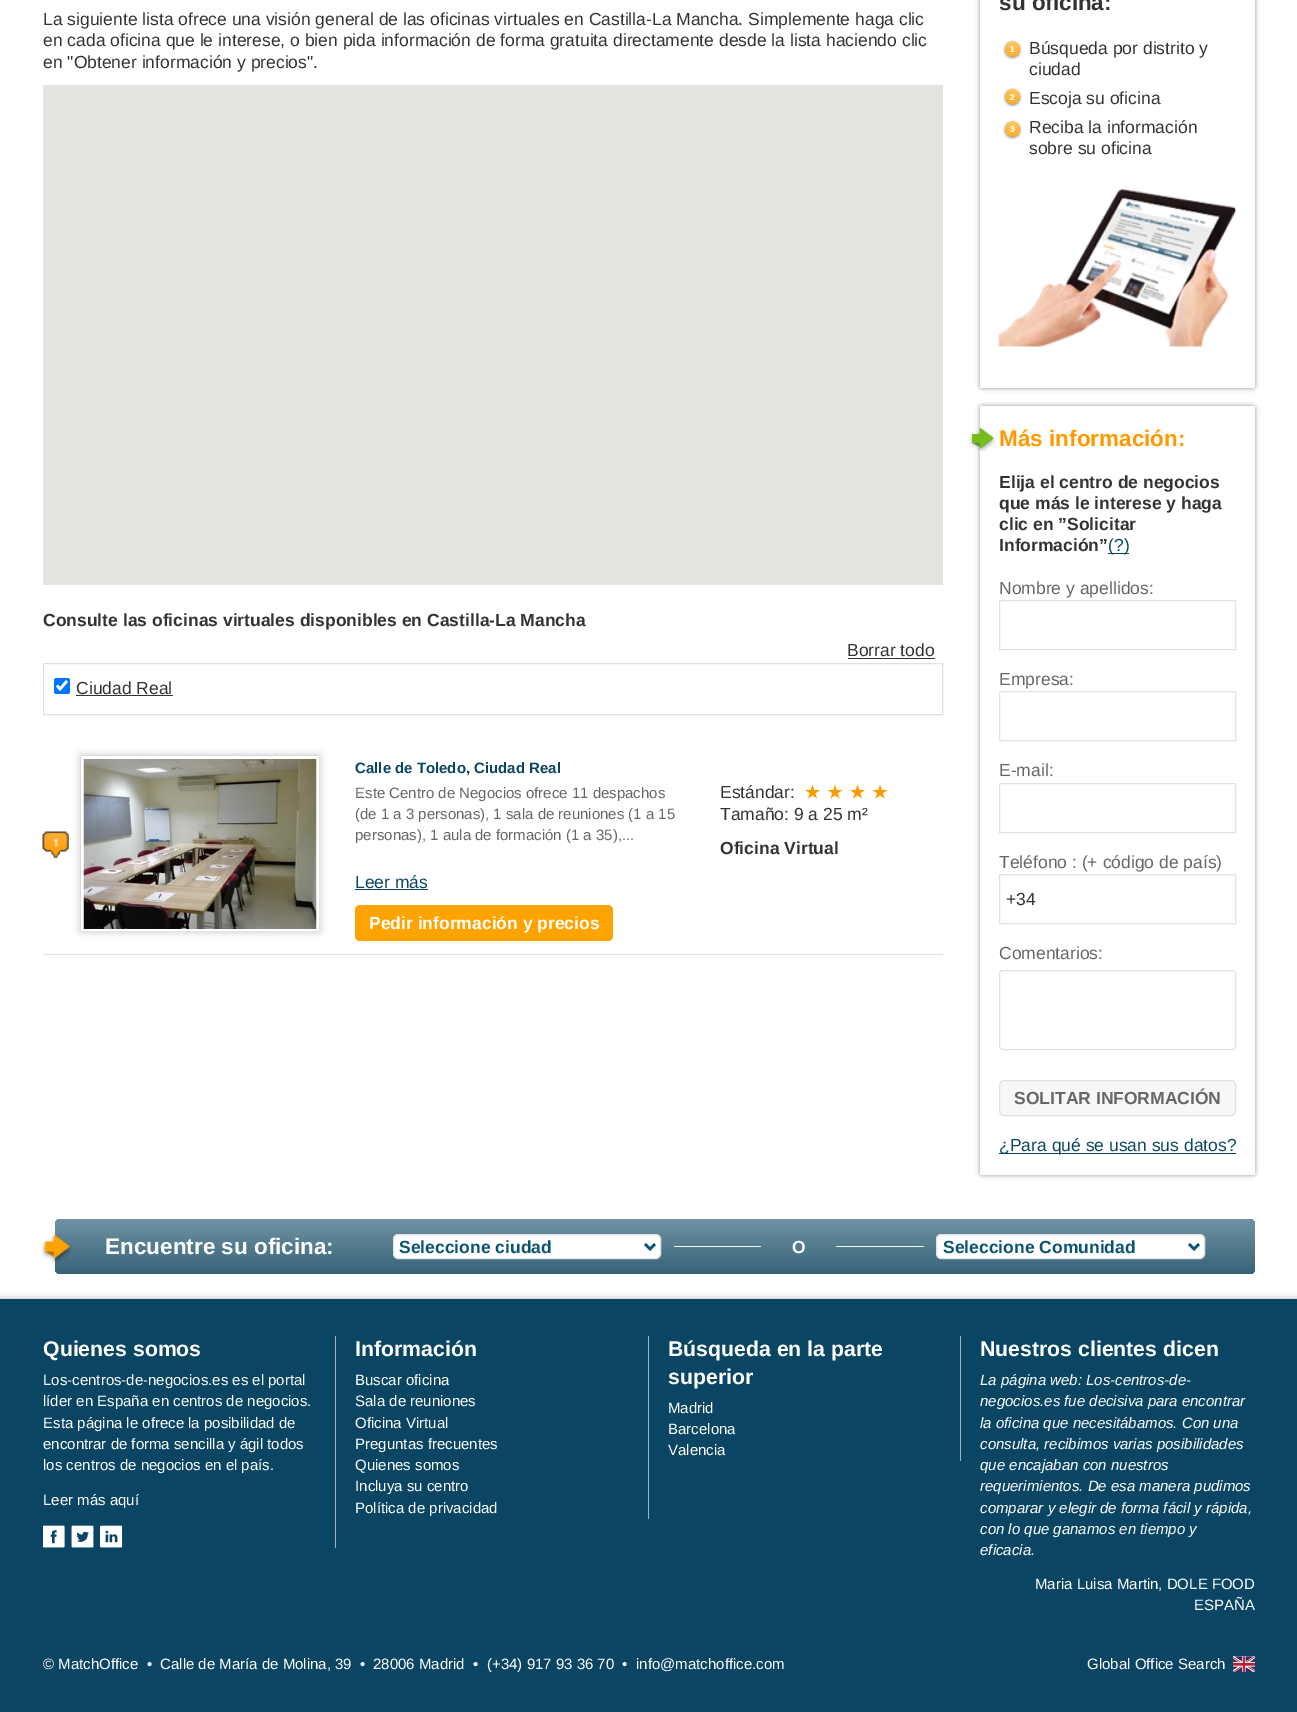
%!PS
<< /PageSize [1297 1712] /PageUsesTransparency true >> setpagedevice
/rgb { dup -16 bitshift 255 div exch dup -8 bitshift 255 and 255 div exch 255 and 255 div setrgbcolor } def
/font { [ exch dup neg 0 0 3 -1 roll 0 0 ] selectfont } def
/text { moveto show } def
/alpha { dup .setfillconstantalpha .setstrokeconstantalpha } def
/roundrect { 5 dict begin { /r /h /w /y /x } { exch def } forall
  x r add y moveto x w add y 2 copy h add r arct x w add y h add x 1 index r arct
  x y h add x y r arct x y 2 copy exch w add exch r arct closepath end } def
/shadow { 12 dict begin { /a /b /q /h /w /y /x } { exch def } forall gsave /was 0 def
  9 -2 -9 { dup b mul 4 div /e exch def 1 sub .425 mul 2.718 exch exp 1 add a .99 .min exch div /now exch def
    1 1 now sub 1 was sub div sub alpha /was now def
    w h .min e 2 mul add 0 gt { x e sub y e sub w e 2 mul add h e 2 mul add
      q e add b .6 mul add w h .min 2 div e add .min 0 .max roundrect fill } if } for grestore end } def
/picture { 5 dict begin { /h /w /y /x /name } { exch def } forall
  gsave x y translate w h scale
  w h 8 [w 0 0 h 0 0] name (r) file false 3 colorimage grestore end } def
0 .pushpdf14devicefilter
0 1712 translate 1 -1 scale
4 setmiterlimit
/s1 { /LiberationSans-Regular 17.5 font 16#333333 rgb } def
/s2 { /LiberationSans-Bold 17.5 font 16#333333 rgb } def
/s3 { /LiberationSans-Bold 15 font 16#0A4664 rgb } def
/s4 { /LiberationSans-Regular 15 font 16#666666 rgb } def
/s5 { /LiberationSans-Regular 17.5 font 16#0A4664 rgb } def
/s6 { /LiberationSans-Bold 17.5 font 16#FFFFFF rgb } def
/s7 { /LiberationSans-Bold 22.5 font 16#333333 rgb } def
/s8 { /LiberationSans-Bold 22.5 font 16#FF9900 rgb } def
/s9 { /LiberationSans-Regular 17.5 font 16#666666 rgb } def
/s10 { /LiberationSans-Bold 17.5 font 16#666666 rgb } def
/s11 { /LiberationSans-Bold 22.5 font 16#FFFFFF rgb } def
/s12 { /LiberationSans-Bold 17.5 font 16#0B5374 rgb } def
/s13 { /LiberationSans-Bold 21.25 font 16#FFFFFF rgb } def
/s14 { /LiberationSans-Regular 15 font 16#FFFFFF rgb } def
/s15 { /LiberationSans-Italic 15 font 16#FFFFFF rgb } def
16#FFFFFF rgb
0 0 1297 1712 rectfill
s1
(La siguiente lista ofrece una visión general de las oficinas virtuales en Castilla-La Mancha. Simplemente haga clic) 43 25 text
(en cada oficina que le interese, o bien pida información de forma gratuita directamente desde la lista haciendo clic) 43 46 text
(en "Obtener información y precios".) 43 68 text
16#E5E3DF rgb
43 85 900 500 rectfill
s2
(Consulte las oficinas virtuales disponibles en Castilla-La Mancha) 43 626 text
s1
(Borrar todo) 847 656 text
848 658 87 1 rectfill
16#E0E0E0 rgb
43.5 663.5 899 51 rectstroke
16#0075FF rgb
54 678 16 16 2.5 roundrect fill
16#FFFFFF rgb
2.6 setlinewidth
57 685.5 moveto 60 689 lineto 67 681 lineto stroke
s1
(Ciudad Real) 76 694 text
76 695 97 1 rectfill
16#E0E0E0 rgb
43 954 900 1 rectfill
(pic1.raw) 42 831 27 27 picture
16#000000 rgb
81 756 238 175 0 4 0.3 shadow
16#FFFFFF rgb
3 setlinewidth
82.5 757.5 235 172 rectstroke
(pic2.raw) 83 759 234 170 picture
s3
(Calle de Toledo, Ciudad Real) 355 773 text
s4
(Este Centro de Negocios ofrece 11 despachos) 355 798 text
(\(de 1 a 3 personas\), 1 sala de reuniones \(1 a 15) 355 819 text
(personas\), 1 aula de formación \(1 a 35\),...) 355 840 text
s5
(Leer más) 355 888 text
355 889 73 1 rectfill
16#FFA300 rgb
355 905 258 36 5 roundrect fill
s6
(Pedir información y precios) 369 929 text
s1
(Estándar:) 720 798 text
(pic3.raw) 805 784 15 15 picture
(pic4.raw) 827 784 16 15 picture
(pic3.raw) 850 784 15 15 picture
(pic4.raw) 872 784 16 15 picture
(Tamaño: 9 a 25 m²) 720 820 text
s2
(Oficina Virtual) 720 854 text
16#000000 rgb
980 -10 275 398 2.5 2.5 0.4 shadow
16#FFFFFF rgb
980 -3 275 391 2.5 roundrect fill
(pic5.raw) 998 189 239 158 picture
s7
(su oficina:) 999 10 text
(pic6.raw) 1003 40 19 20 picture
s1
(Búsqueda por distrito y) 1029 54 text
(ciudad) 1029 75 text
(pic7.raw) 1003 87 19 20 picture
(Escoja su oficina) 1029 104 text
(pic8.raw) 1003 120 19 20 picture
(Reciba la información) 1029 133 text
(sobre su oficina) 1029 154 text
16#000000 rgb
980 406 275 769 2.5 2.5 0.4 shadow
16#FFFFFF rgb
980 406 275 769 2.5 roundrect fill
(pic9.raw) 969 427 27 25 picture
s8
(Más información:) 999 446 text
s2
(Elija el centro de negocios) 999 488 text
(que más le interese y haga) 999 509 text
(clic en ”Solicitar) 999 530 text
(Información”) 999 551 text
16#0A4664 rgb
1108 553 21 1 rectfill
s5
(\(?\)) 1108 551 text
s9
(Nombre y apellidos:) 999 594 text
16#E1E1E1 rgb
1 setlinewidth
999.5 600.5 236 49 rectstroke
s9
(Empresa:) 999 685 text
16#E1E1E1 rgb
999.5 691.5 236 49 rectstroke
s9
(E-mail:) 999 776 text
16#E1E1E1 rgb
999.5 783.5 236 49 rectstroke
s9
(Teléfono : \(+ código de país\)) 999 868 text
16#E1E1E1 rgb
999.5 874.5 236 49 rectstroke
s1
(+34) 1006 905 text
s9
(Comentarios:) 999 959 text
16#E1E1E1 rgb
999.5 970.5 236 79 3.5 roundrect stroke
16#F8F7F8 rgb
999.5 1080.5 236 35 4.5 roundrect gsave fill grestore
16#E1E1E1 rgb
stroke
s10
(SOLITAR INFORMACIÓN) 1014 1104 text
16#0A4664 rgb
999 1153 237 1 rectfill
s5
(¿Para qué se usan sus datos?) 999 1151 text
gsave 55 1219 1200 55 5 roundrect clip newpath
<< /ShadingType 2 /ColorSpace /DeviceRGB /Coords [655 1219 655 1274] /Extend [true true] /Function << /FunctionType 2 /Domain [0 1] /C0 [0.435 0.576 0.639] /C1 [0.216 0.388 0.475] /N 1 >> >> shfill grestore
(pic10.raw) 41 1234 31 29 picture
s11
(Encuentre su oficina:) 105 1254 text
393.5 1234.5 267 24 4.5 roundrect gsave fill grestore
16#E1E1E1 rgb
stroke
16#0B5374 rgb
2.5 setlinewidth
645 1244 moveto 650 1249 lineto 655 1244 lineto stroke
s12
(Seleccione ciudad) 399 1253 text
16#F3F4F5 rgb
674 1246 87 1 rectfill
s6
(O) 792 1253 text
16#F3F4F5 rgb
836 1246 88 1 rectfill
16#FFFFFF rgb
936.5 1234.5 268 24 4.5 roundrect gsave fill grestore
16#E1E1E1 rgb
1 setlinewidth
stroke
16#0B5374 rgb
2.5 setlinewidth
1189 1244 moveto 1194 1249 lineto 1199 1244 lineto stroke
(Seleccione Comunidad) 943 1253 text
16#000000 rgb
0 1299 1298 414 0 4 0.3 shadow
16#0A4664 rgb
0 1299 1297 413 rectfill
16#9DB5C1 rgb
335 1336 1 212 rectfill
s13
(Quienes somos) 43 1356 text
s14
(Los-centros-de-negocios.es es el portal) 43 1385 text
(líder en España en centros de negocios.) 43 1406 text
(Esta página le ofrece la posibilidad de) 43 1428 text
(encontrar de forma sencilla y ágil todos) 43 1449 text
(los centros de negocios en el país.) 43 1470 text
(Leer más aquí) 43 1505 text
(pic11.raw) 43 1525 22 23 picture
(pic12.raw) 71 1525 23 23 picture
(pic13.raw) 100 1525 23 23 picture
16#9DB5C1 rgb
648 1336 1 183 rectfill
s13
(Información) 355 1356 text
s14
(Buscar oficina) 355 1385 text
(Sala de reuniones) 355 1406 text
(Oficina Virtual) 355 1428 text
(Preguntas frecuentes) 355 1449 text
(Quienes somos) 355 1470 text
(Incluya su centro) 355 1491 text
(Política de privacidad) 355 1513 text
16#9DB5C1 rgb
960 1336 1 125 rectfill
s13
(Búsqueda en la parte) 668 1356 text
(superior) 668 1384 text
s14
(Madrid) 668 1413 text
(Barcelona) 668 1434 text
(Valencia) 668 1455 text
s13
(Nuestros clientes dicen) 980 1356 text
s15
(La página web: Los-centros-de-) 980 1385 text
(negocios.es fue decisiva para encontrar) 980 1406 text
(la oficina que necesitábamos. Con una) 980 1428 text
(consulta, recibimos varias posibilidades) 980 1449 text
(que encajaban con nuestros) 980 1470 text
(requerimientos. De esa manera pudimos) 980 1491 text
(comparar y elegir de forma fácil y rápida,) 980 1513 text
(con lo que ganamos en tiempo y) 980 1534 text
(eficacia.) 980 1555 text
s14
(Maria Luisa Martin, DOLE FOOD) 1035 1589 text
(ESPAÑA) 1194 1610 text
(© MatchOffice  •) 43 1669 text
(Calle de María de Molina, 39  •) 160 1669 text
(28006 Madrid  •) 373 1669 text
(\(+34\) 917 93 36 70  •) 487 1669 text
(info@matchoffice.com) 636 1669 text
(pic14.raw) 1233 1656 22 16 picture
(Global Office Search) 1087 1669 text
.poppdf14devicefilter showpage
